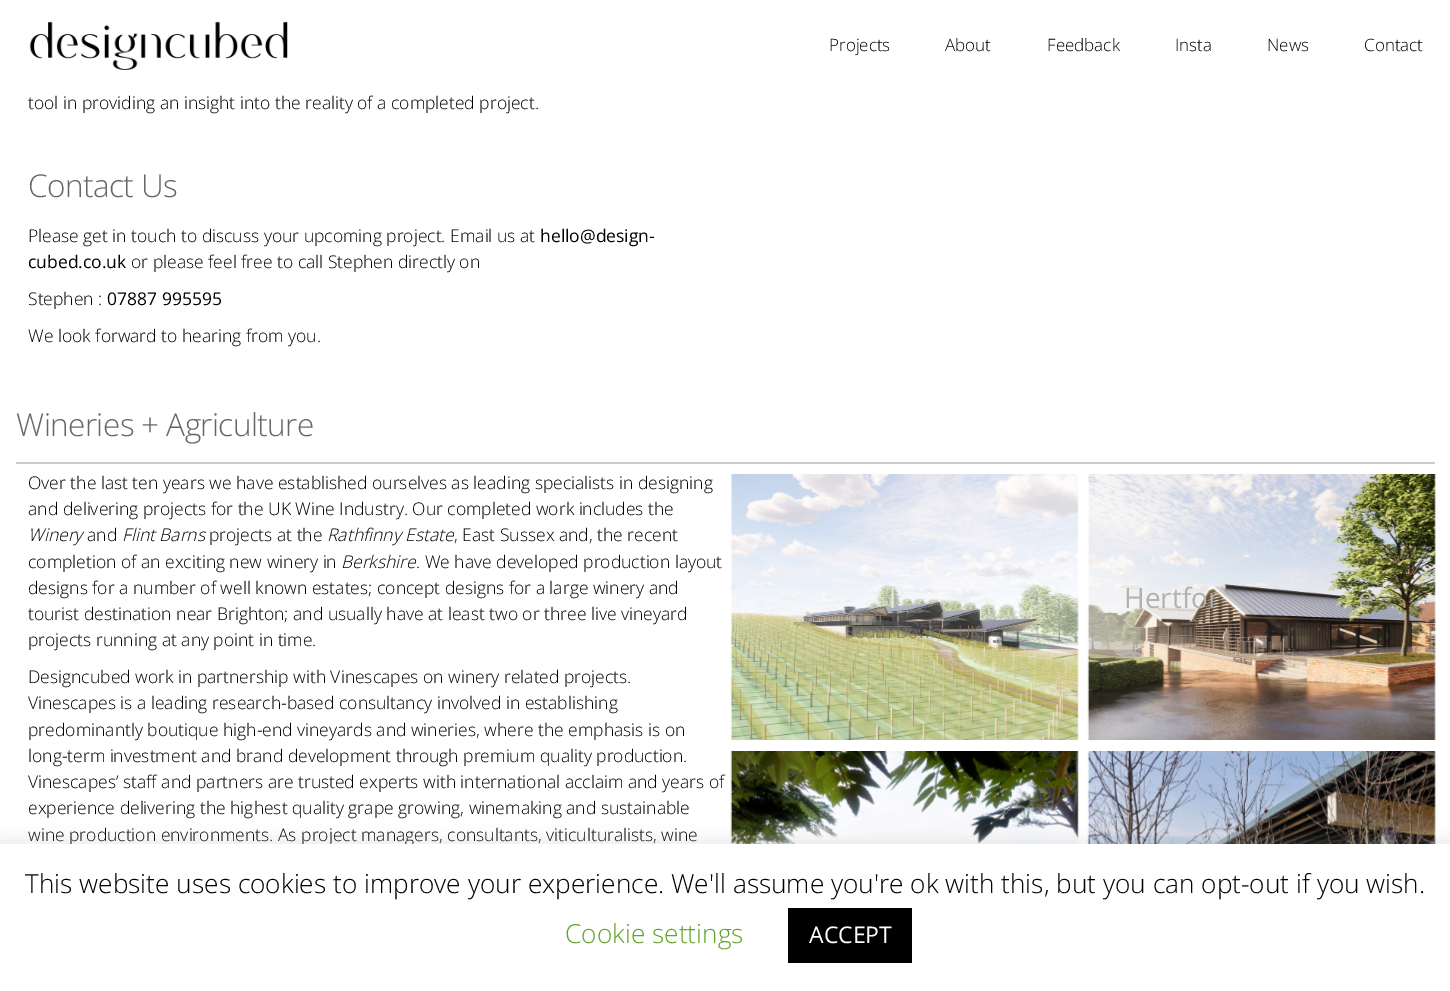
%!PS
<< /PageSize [1450 991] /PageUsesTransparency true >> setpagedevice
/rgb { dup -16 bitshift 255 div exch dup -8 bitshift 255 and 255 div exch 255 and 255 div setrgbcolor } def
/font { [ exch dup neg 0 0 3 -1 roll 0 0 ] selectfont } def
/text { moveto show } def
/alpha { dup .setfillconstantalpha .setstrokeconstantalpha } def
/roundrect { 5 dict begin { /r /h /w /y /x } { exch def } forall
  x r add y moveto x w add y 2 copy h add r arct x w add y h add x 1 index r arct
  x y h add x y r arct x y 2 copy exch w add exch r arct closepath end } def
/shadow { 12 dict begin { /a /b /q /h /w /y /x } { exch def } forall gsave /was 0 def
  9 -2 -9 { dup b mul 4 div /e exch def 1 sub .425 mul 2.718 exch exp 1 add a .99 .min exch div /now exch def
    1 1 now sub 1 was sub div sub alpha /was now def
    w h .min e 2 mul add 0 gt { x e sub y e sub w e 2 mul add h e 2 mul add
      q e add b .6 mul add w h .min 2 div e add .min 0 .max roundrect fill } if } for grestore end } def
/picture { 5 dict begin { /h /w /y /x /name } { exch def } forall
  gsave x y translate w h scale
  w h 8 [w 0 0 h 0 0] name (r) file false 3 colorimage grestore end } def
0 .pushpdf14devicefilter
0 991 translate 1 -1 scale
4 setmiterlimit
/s1 { /OpenSans-Light 17 font 16#000000 rgb } def
/s2 { /OpenSans-Light 17.5 font 16#000000 rgb } def
/s3 { /OpenSans-Regular 17.5 font 16#000000 rgb } def
/s4 { /OpenSans-LightItalic 17.5 font 16#000000 rgb } def
/s5 { /OpenSans-Regular 28 font 16#E3E7E4 rgb } def
/s6 { /OpenSans-Light 17.5 font 16#7C7861 rgb } def
/s7 { /OpenSans-Regular 28 font 16#B3B2AA rgb } def
/s8 { /OpenSans-Light 26.25 font 16#000000 rgb } def
/s9 { /OpenSans-Light 26.25 font 16#62A329 rgb } def
/s10 { /OpenSans-Regular 23 font 16#FFFFFF rgb } def
16#FFFFFF rgb
0 0 1450 991 rectfill
(pic1.raw) 29 21 259 49 picture
s1
(Projects) 829 51 text
(About) 945 51 text
(Feedback) 1047 51 text
(Insta) 1175 51 text
(News) 1267 51 text
(Contact) 1364 51 text
s2
(tool in providing an insight into the reality of a completed project.) 28 109 text
/OpenSans-Light 31.5 font
16#666666 rgb
28 197 moveto -0.6 0 (Contact Us) ashow
s2
(Please get in touch to discuss your upcoming project. Email us at) 28 242 text
s3
(hello@design-) 540 242 text
(cubed.co.uk) 28 268 text
s2
(or please feel free to call Stephen directly on) 131 268 text
(Stephen :) 28 305 text
s3
(07887 995595) 107 305 text
s2
(We look forward to hearing from you.) 28 342 text
16#CCCCCC rgb
16 462 1419 2 rectfill
/OpenSans-Light 31.5 font
16#666666 rgb
16 436 moveto -0.6 0 (Wineries + Agriculture) ashow
s2
(Over the last ten years we have established ourselves as leading specialists in designing) 28 489 text
(and delivering projects for the UK Wine Industry. Our completed work includes the) 28 515 text
s4
(Winery) 28 541 text
s2
(and) 87 541 text
s4
(Flint Barns) 122 541 text
s2
(projects at the) 209 541 text
s4
(Rathfinny Estate) 327 541 text
s2
(, East Sussex and, the recent) 454 541 text
(completion of an exciting new winery in) 28 568 text
s4
(Berkshire) 341 568 text
s2
(. We have developed production layout) 416 568 text
(designs for a number of well known estates; concept designs for a large winery and) 28 594 text
(tourist destination near Brighton; and usually have at least two or three live vineyard) 28 620 text
(projects running at any point in time.) 28 646 text
(Designcubed work in partnership with Vinescapes on winery related projects.) 28 683 text
(Vinescapes is a leading research-based consultancy involved in establishing) 28 709 text
(predominantly boutique high-end vineyards and wineries, where the emphasis is on) 28 736 text
(long-term investment and brand development through premium quality production.) 28 762 text
(Vinescapes’ staff and partners are trusted experts with international acclaim and years of) 28 788 text
(experience delivering the highest quality grape growing, winemaking and sustainable) 28 814 text
(wine production environments. As project managers, consultants, viticulturalists, wine) 28 841 text
(pic2.raw) 730 474 349 266 picture
s5
(l) 889 608 text
s6
(South Downs, UK) 845 638 text
(pic3.raw) 1087 474 349 266 picture
s7
(Hertfor) 1124 608 text
(e) 1358 608 text
(pic4.raw) 730 751 349 93 picture
(pic5.raw) 1087 751 349 93 picture
16#ACABAB rgb
0 842 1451 149 0 9 0.3 shadow
16#FFFFFF rgb
0 844 1450 147 rectfill
s8
(This website uses cookies to improve your experience. We'll assume you're ok with this, but you can opt-out if you wish.) 25 893 text
s9
(Cookie settings) 565 943 text
16#000000 rgb
788 908 124 55 rectfill
s10
(ACCEPT) 809 943 text
.poppdf14devicefilter showpage
